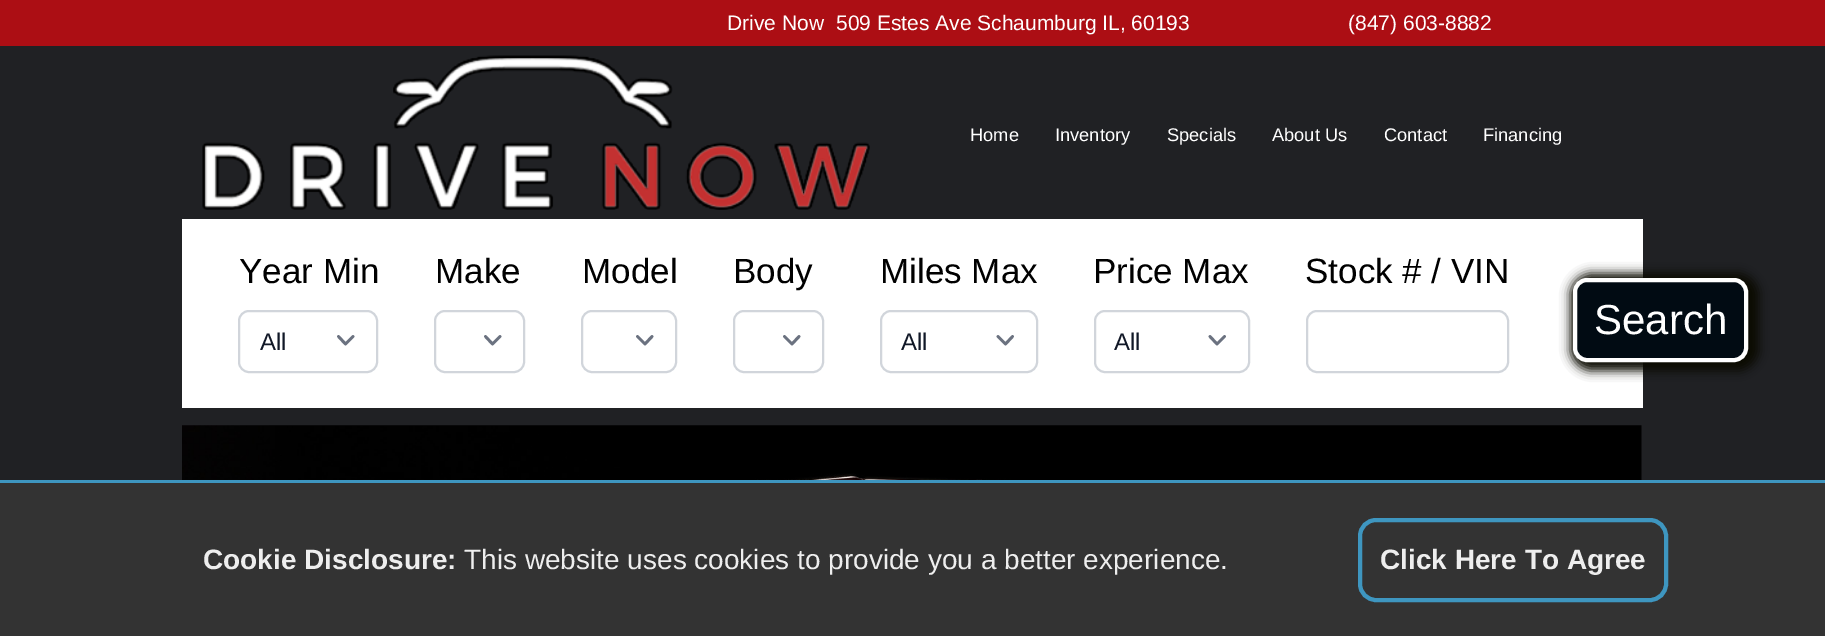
%!PS
<< /PageSize [1825 636] /PageUsesTransparency true >> setpagedevice
/rgb { dup -16 bitshift 255 div exch dup -8 bitshift 255 and 255 div exch 255 and 255 div setrgbcolor } def
/font { [ exch dup neg 0 0 3 -1 roll 0 0 ] selectfont } def
/text { moveto show } def
/alpha { dup .setfillconstantalpha .setstrokeconstantalpha } def
/roundrect { 5 dict begin { /r /h /w /y /x } { exch def } forall
  x r add y moveto x w add y 2 copy h add r arct x w add y h add x 1 index r arct
  x y h add x y r arct x y 2 copy exch w add exch r arct closepath end } def
/shadow { 12 dict begin { /a /b /q /h /w /y /x } { exch def } forall gsave /was 0 def
  9 -2 -9 { dup b mul 4 div /e exch def 1 sub .425 mul 2.718 exch exp 1 add a .99 .min exch div /now exch def
    1 1 now sub 1 was sub div sub alpha /was now def
    w h .min e 2 mul add 0 gt { x e sub y e sub w e 2 mul add h e 2 mul add
      q e add b .6 mul add w h .min 2 div e add .min 0 .max roundrect fill } if } for grestore end } def
/picture { 5 dict begin { /h /w /y /x /name } { exch def } forall
  gsave x y translate w h scale
  w h 8 [w 0 0 h 0 0] name (r) file false 3 colorimage grestore end } def
0 .pushpdf14devicefilter
0 636 translate 1 -1 scale
4 setmiterlimit
/s1 { /LiberationSans-Regular 21 font 16#FFFFFF rgb } def
/s2 { /LiberationSans-Regular 18.25 font 16#FFFFFF rgb } def
/s3 { /LiberationSans-Regular 35 font 16#000000 rgb } def
/s4 { /LiberationSans-Regular 24 font 16#111827 rgb } def
/s5 { /LiberationSans-Regular 42 font 16#FFFFFF rgb } def
/s6 { /LiberationSans-Bold 28 font 16#EEEEEE rgb } def
/s7 { /LiberationSans-Regular 28 font 16#EEEEEE rgb } def
16#202124 rgb
0 0 1825 636 rectfill
16#AC0E14 rgb
0 0 1825 46 rectfill
s1
(Drive Now) 727 30 text
(509 Estes Ave Schaumburg IL, 60193) 836 30 text
(\(847\) 603-8882) 1348 30 text
(pic1.raw) 202 55 668 155 picture
s2
(Home) 970 141 text
(Inventory) 1055 141 text
(Specials) 1167 141 text
(About Us) 1272 141 text
(Contact) 1384 141 text
(Financing) 1483 141 text
182 219 1461 189 rectfill
s3
(Year Min) 239 283 text
16#6B7280 rgb
2.8 setlinewidth
1 setlinecap
1 setlinejoin
338.5 336.5 moveto 345.5 344 lineto 353 336.5 lineto stroke
16#D1D5DB rgb
2 setlinewidth
0 setlinecap
0 setlinejoin
239 311 138 61 10 roundrect stroke
s4
(All) 260 350 text
s3
(Make) 435 283 text
16#6B7280 rgb
2.8 setlinewidth
1 setlinecap
1 setlinejoin
485.5 336.5 moveto 492.5 344 lineto 500 336.5 lineto stroke
16#D1D5DB rgb
2 setlinewidth
0 setlinecap
0 setlinejoin
435 311 89 61 10 roundrect stroke
s3
(Model) 582 283 text
16#6B7280 rgb
2.8 setlinewidth
1 setlinecap
1 setlinejoin
637.5 336.5 moveto 645 344 lineto 652 336.5 lineto stroke
16#D1D5DB rgb
2 setlinewidth
0 setlinecap
0 setlinejoin
582 311 94 61 10 roundrect stroke
s3
(Body) 733 283 text
16#6B7280 rgb
2.8 setlinewidth
1 setlinecap
1 setlinejoin
784.5 336.5 moveto 792 344 lineto 799 336.5 lineto stroke
16#D1D5DB rgb
2 setlinewidth
0 setlinecap
0 setlinejoin
734 311 89 61 10 roundrect stroke
s3
(Miles Max) 880 283 text
16#6B7280 rgb
2.8 setlinewidth
1 setlinecap
1 setlinejoin
998 336.5 moveto 1005.5 344 lineto 1012.5 336.5 lineto stroke
16#D1D5DB rgb
2 setlinewidth
0 setlinecap
0 setlinejoin
881 311 156 61 10 roundrect stroke
s4
(All) 901 350 text
s3
(Price Max) 1093 283 text
16#6B7280 rgb
2.8 setlinewidth
1 setlinecap
1 setlinejoin
1210 336.5 moveto 1217 344 lineto 1224.5 336.5 lineto stroke
16#D1D5DB rgb
2 setlinewidth
0 setlinecap
0 setlinejoin
1095 311 154 61 10 roundrect stroke
s4
(All) 1114 350 text
s3
(Stock # / VIN) 1305 283 text
16#D1D5DB rgb
1307 311 201 61 10 roundrect stroke
16#0A0A00 rgb
1570 273 189 98 21 5 1 shadow
16#010B13 rgb
1575 280 171 80 12 roundrect gsave fill grestore
16#FFFFFF rgb
4 setlinewidth
stroke
s5
(Search) 1594 334 text
(pic2.raw) 182 425 1460 55 picture
16#3E96C0 rgb
0 480 1825 3 rectfill
16#333333 rgb
0 483 1825 153 rectfill
s6
(Cookie Disclosure:) 203 569 text
s7
(This website uses cookies to provide you a better experience.) 464 569 text
16#3E96C0 rgb
1360 520 306 80 16 roundrect stroke
s6
(Click Here To Agree) 1380 569 text
.poppdf14devicefilter showpage
